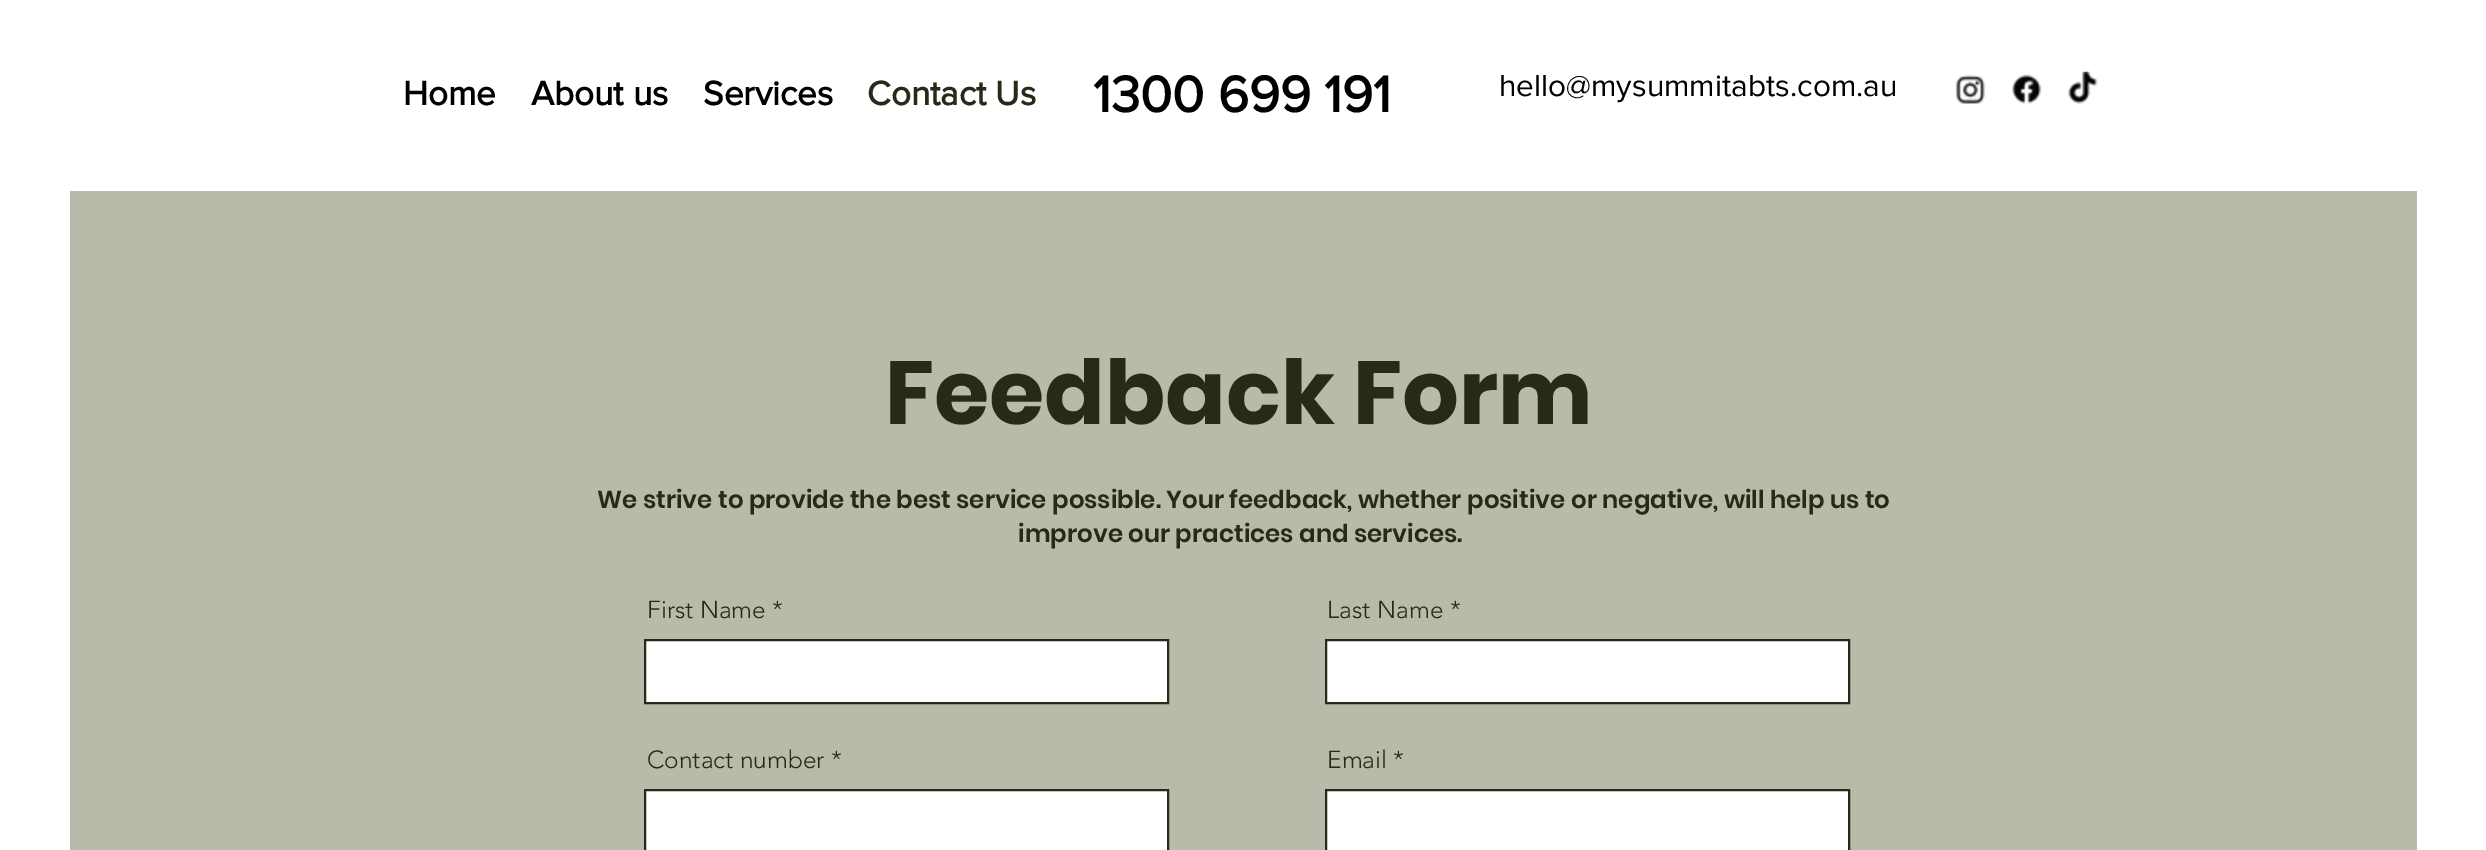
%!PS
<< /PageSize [2486 850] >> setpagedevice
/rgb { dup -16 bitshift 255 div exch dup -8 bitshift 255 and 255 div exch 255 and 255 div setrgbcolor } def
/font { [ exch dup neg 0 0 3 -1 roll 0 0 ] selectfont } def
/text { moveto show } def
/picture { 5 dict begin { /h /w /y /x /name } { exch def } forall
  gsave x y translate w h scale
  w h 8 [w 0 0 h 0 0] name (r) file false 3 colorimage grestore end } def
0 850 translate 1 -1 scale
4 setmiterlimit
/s1 { /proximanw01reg-Bold 35 font 16#000000 rgb } def
/s2 { /proximanw01reg-Bold 35 font 16#262A19 rgb } def
/s3 { /proximanw01reg-Bold 52.5 font 16#000000 rgb } def
/s4 { /proximanw01reg-Regular 31.5 font 16#000000 rgb } def
/s5 { /Poppins-Bold 89.25 font 16#262A19 rgb } def
/s6 { /Poppins-SemiBold 24.5 font 16#262A19 rgb } def
/s7 { /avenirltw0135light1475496-Light 24.5 font 16#262A19 rgb } def
16#FFFFFF rgb
0 0 2486 850 rectfill
s1
(Home) 403 105 text
(About us) 531 105 text
(Services) 703 105 text
s2
(Contact Us) 867 105 text
s3
(1300 699 191) 1093 112 text
s4
(hello@mysummitabts.com.au) 1499 96 text
(pic1.raw) 1955 75 31 29 picture
(pic2.raw) 2012 74 30 30 picture
(pic3.raw) 2068 71 30 33 picture
16#B7BBA9 rgb
70 191 2347 659 rectfill
s5
(Feedback Form) 885 424 text
s6
(We strive to provide the best service possible. Your feedback, whether positive or negative, will help us to) 597 508 text
(improve our practices and services.) 1018 542 text
s7
(First Name *) 647 618 text
16#FFFFFF rgb
645 640 moveto 1168 640 lineto 1168 703 lineto 645 703 lineto closepath gsave fill grestore
16#262A19 rgb
2 setlinewidth
stroke
(Last Name *) 1327 618 text
16#FFFFFF rgb
1326 640 moveto 1849 640 lineto 1849 703 lineto 1326 703 lineto closepath gsave fill grestore
16#262A19 rgb
stroke
(Contact number *) 647 768 text
16#FFFFFF rgb
645 790 moveto 1168 790 lineto 1168 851 lineto 645 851 lineto closepath gsave fill grestore
16#262A19 rgb
stroke
(Email *) 1327 768 text
16#FFFFFF rgb
1326 790 moveto 1849 790 lineto 1849 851 lineto 1326 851 lineto closepath gsave fill grestore
16#262A19 rgb
stroke
showpage
